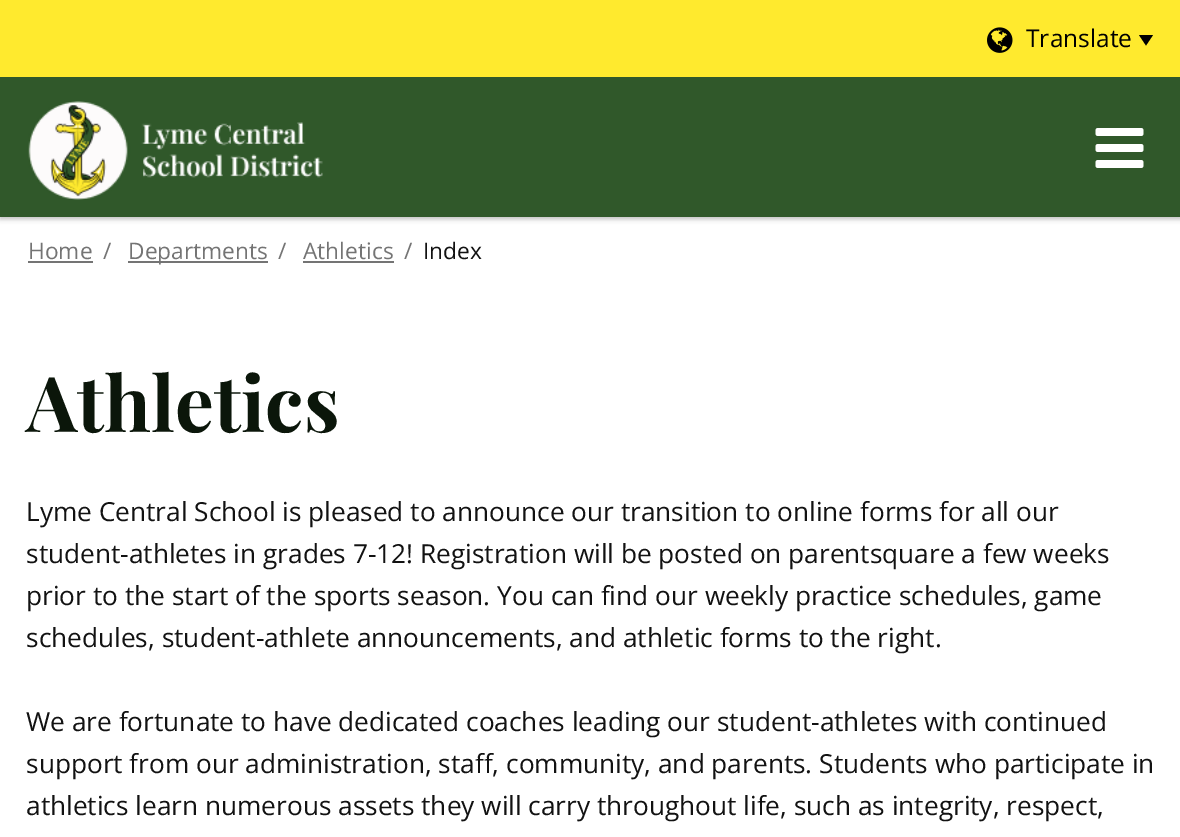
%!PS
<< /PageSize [1180 837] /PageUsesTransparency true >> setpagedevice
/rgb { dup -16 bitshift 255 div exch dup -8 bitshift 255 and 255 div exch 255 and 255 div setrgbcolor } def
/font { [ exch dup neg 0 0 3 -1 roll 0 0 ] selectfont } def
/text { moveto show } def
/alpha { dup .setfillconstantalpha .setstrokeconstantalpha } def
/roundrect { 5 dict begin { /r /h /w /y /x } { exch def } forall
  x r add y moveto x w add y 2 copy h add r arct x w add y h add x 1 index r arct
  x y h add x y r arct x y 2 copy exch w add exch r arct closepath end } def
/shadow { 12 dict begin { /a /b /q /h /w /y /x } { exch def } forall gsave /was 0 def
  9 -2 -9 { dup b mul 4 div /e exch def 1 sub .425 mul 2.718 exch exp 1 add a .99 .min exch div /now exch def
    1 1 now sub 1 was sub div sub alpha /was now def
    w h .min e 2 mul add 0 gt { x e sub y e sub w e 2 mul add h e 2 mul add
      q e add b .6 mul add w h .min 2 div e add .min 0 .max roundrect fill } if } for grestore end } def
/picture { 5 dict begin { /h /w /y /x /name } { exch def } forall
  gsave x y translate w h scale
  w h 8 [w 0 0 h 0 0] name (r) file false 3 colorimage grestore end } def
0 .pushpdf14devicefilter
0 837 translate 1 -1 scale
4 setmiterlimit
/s1 { /OpenSans-Regular 24.5 font 16#000000 rgb } def
/s2 { /OpenSans-Regular 22.75 font 16#747474 rgb } def
/s3 { /OpenSans-Regular 22.75 font 16#121212 rgb } def
/s4 { /PlayfairDisplay-Bold 77 font 16#0B160A rgb } def
/s5 { /OpenSans-Regular 26.25 font 16#121212 rgb } def
16#FFFFFF rgb
0 0 1180 837 rectfill
16#000000 rgb
0 2 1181 217 0 2.5 0.25 shadow
16#FFEA2E rgb
0 0 1180 77 rectfill
(pic1.raw) 987 27 26 26 picture
s1
(Translate) 1026 47 text
1139 35 moveto 1153 35 lineto 1146 45.5 lineto closepath fill
16#30582A rgb
0 77 1180 140 rectfill
(pic2.raw) 28 101 295 99 picture
(pic3.raw) 1095 128 49 40 picture
s2
(Home) 28 259 text
28 261 65 2 rectfill
(/) 103 259 text
128 261 140 2 rectfill
(Departments) 128 259 text
(/) 278 259 text
(Athletics) 303 259 text
303 261 91 2 rectfill
(/) 404 259 text
s3
(Index) 423 259 text
s4
(Athletics) 26 432 text
s5
(Lyme Central School is pleased to announce our transition to online forms for all our) 26 521 text
(student-athletes in grades 7-12! Registration will be posted on parentsquare a few weeks) 26 563 text
(prior to the start of the sports season. You can find our weekly practice schedules, game) 26 605 text
(schedules, student-athlete announcements, and athletic forms to the right.) 26 647 text
(We are fortunate to have dedicated coaches leading our student-athletes with continued) 26 731 text
(support from our administration, staff, community, and parents. Students who participate in) 26 773 text
(athletics learn numerous assets they will carry throughout life, such as integrity, respect,) 26 815 text
.poppdf14devicefilter showpage
